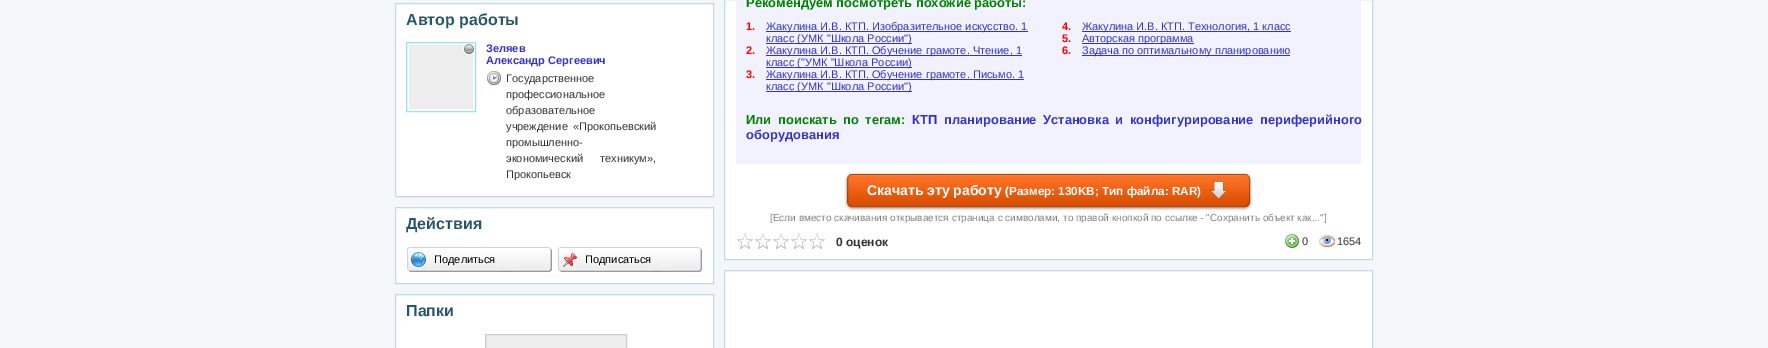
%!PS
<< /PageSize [1768 348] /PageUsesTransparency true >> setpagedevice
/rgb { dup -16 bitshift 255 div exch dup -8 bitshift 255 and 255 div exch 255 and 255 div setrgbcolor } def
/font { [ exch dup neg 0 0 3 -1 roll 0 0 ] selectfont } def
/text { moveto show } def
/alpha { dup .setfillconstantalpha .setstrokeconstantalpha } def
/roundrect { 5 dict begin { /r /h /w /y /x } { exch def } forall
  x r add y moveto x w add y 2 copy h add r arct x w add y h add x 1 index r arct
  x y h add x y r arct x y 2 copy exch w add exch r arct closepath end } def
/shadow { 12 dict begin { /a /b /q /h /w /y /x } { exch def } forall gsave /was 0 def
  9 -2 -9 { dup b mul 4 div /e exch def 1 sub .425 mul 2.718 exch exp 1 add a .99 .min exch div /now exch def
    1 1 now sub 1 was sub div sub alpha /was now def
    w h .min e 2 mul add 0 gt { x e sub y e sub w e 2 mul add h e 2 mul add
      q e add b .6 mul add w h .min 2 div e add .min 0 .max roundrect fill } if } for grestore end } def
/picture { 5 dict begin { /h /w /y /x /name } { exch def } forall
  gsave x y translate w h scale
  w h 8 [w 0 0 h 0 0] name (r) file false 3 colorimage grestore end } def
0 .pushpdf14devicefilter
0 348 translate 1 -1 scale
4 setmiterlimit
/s1 { /LiberationSans-Bold 16 font 16#28576B rgb } def
/s2 { /LiberationSans-Bold 11 font 16#3333CC rgb } def
/s3 { /LiberationSans-Regular 11 font 16#333333 rgb } def
/s4 { /LiberationSans-Regular 11 font 16#000000 rgb } def
/s5 { /LiberationSans-Bold 12.9 font 16#008000 rgb } def
/s6 { /LiberationSans-Bold 11 font 16#FF0000 rgb } def
/s7 { /LiberationSans-Regular 11 font 16#3333CC rgb } def
/s8 { /LiberationSans-Bold 12.9 font 16#3333CC rgb } def
/s9 { /LiberationSans-Bold 14 font 16#FFFFFF rgb } def
/s10 { /LiberationSans-Bold 11.7 font 16#FFFFFF rgb } def
/s11 { /LiberationSans-Regular 10 font 16#808080 rgb } def
/s12 { /LiberationSans-Bold 12 font 16#333333 rgb } def
16#F4F7FA rgb
0 0 1768 348 rectfill
16#FFFFFF rgb
395.5 3.5 moveto 713.5 3.5 lineto 713.5 196.5 lineto 395.5 196.5 lineto closepath gsave fill grestore
16#BFDBE7 rgb
stroke
s1
(Автор работы) 406 25 text
16#95DFFF rgb
406.5 42.5 69 69 rectstroke
16#EDEDED rgb
409 45 64 64 rectfill
(pic1.raw) 463 44 11 11 picture
s2
(Зеляев) 486 52 text
(Александр Сергеевич) 486 64 text
(pic2.raw) 487 71 14 14 picture
s3
(Государственное) 506 82 text
(профессиональное) 506 98 text
(образовательное) 506 114 text
506 130 moveto 2 0 32 (учреждение «Прокопьевский) widthshow
(промышленно-) 506 146 text
506 162 moveto 14 0 32 (экономический техникум»,) widthshow
(Прокопьевск) 506 178 text
16#FFFFFF rgb
395.5 207.5 moveto 713.5 207.5 lineto 713.5 283.5 lineto 395.5 283.5 lineto closepath gsave fill grestore
16#BFDBE7 rgb
stroke
s1
(Действия) 406 229 text
(pic3.raw) 407 247 141 25 picture
(pic4.raw) 411 252 15 15 picture
s4
(Поделиться) 434 263 text
(pic5.raw) 548 247 4 25 picture
(pic6.raw) 558 247 140 25 picture
(pic7.raw) 563 253 14 14 picture
(Подписаться) 585 263 text
(pic5.raw) 698 247 4 25 picture
16#FFFFFF rgb
395.5 294.5 moveto 713.5 294.5 lineto 713.5 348.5 lineto 395.5 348.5 lineto closepath gsave fill grestore
16#BFDBE7 rgb
stroke
s1
(Папки) 406 316 text
16#EDEDED rgb
485.5 334.5 moveto 626.5 334.5 lineto 626.5 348.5 lineto 485.5 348.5 lineto closepath gsave fill grestore
16#CCCCCC rgb
stroke
16#FFFFFF rgb
724.5 -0.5 moveto 1372.5 -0.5 lineto 1372.5 259.5 lineto 724.5 259.5 lineto closepath gsave fill grestore
16#BFDBE7 rgb
stroke
16#F2F2FF rgb
736 0 625 164 rectfill
s5
(Рекомендуем посмотреть похожие работы:) 746 7 text
s6
(1.) 746 30 text
16#3333CC rgb
766 31 262 1 rectfill
s7
(Жакулина И.В. КТП. Изобразительное искусство. 1) 766 30 text
766 43 146 1 rectfill
(класс \(УМК "Школа России"\)) 766 42 text
s6
(2.) 746 54 text
16#3333CC rgb
766 55 256 1 rectfill
s7
(Жакулина И.В. КТП. Обучение грамоте. Чтение, 1) 766 54 text
766 67 146 1 rectfill
(класс \("УМК "Школа России\)) 766 66 text
s6
(3.) 746 78 text
16#3333CC rgb
766 79 258 1 rectfill
s7
(Жакулина И.В. КТП. Обучение грамоте. Письмо. 1) 766 78 text
766 91 146 1 rectfill
(класс \(УМК "Школа России"\)) 766 90 text
s6
(4.) 1062 30 text
16#3333CC rgb
1082 31 209 1 rectfill
s7
(Жакулина И.В. КТП. Технология, 1 класс) 1082 30 text
s6
(5.) 1062 42 text
16#3333CC rgb
1082 43 112 1 rectfill
s7
(Авторская программа) 1082 42 text
s6
(6.) 1062 54 text
16#3333CC rgb
1082 55 208 1 rectfill
s7
(Задача по оптимальному планированию) 1082 54 text
/LiberationSans-Bold 12.9 font
16#008000 rgb
746 124 moveto 3 0 32 (Или поискать по тегам:) widthshow
s8
(КТП) 912 124 text
(планирование) 944 124 text
1043 124 moveto 3 0 32 (Установка и конфигурирование периферийного) widthshow
(оборудования) 746 139 text
16#000000 rgb
847 175 403 33 5 1.5 0.5 shadow
16#FF5C00 rgb
847 174 403 33 5 roundrect fill
(pic8.raw) 847 175 403 31 picture
0.25 alpha
16#000000 rgb
847.5 174.5 402 32 4.5 roundrect stroke
1 alpha
s9
(Скачать эту работу) 867 195 text
s10
(\(Размер: 130KB; Тип файла: RAR\)) 1005 195 text
(pic9.raw) 1210 182 17 16 picture
s11
([Если вместо скачивания открывается страница с символами, то правой кнопкой по ссылке - "Сохранить объект как..."]) 770 221 text
(pic10.raw) 737 233 88 16 picture
s12
(0 оценок) 836 246 text
(pic11.raw) 1285 234 14 14 picture
s3
(0) 1302 245 text
(pic12.raw) 1319 235 16 12 picture
(1654) 1337 245 text
16#FFFFFF rgb
724.5 270.5 moveto 1372.5 270.5 lineto 1372.5 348.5 lineto 724.5 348.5 lineto closepath gsave fill grestore
16#BFDBE7 rgb
stroke
.poppdf14devicefilter showpage
